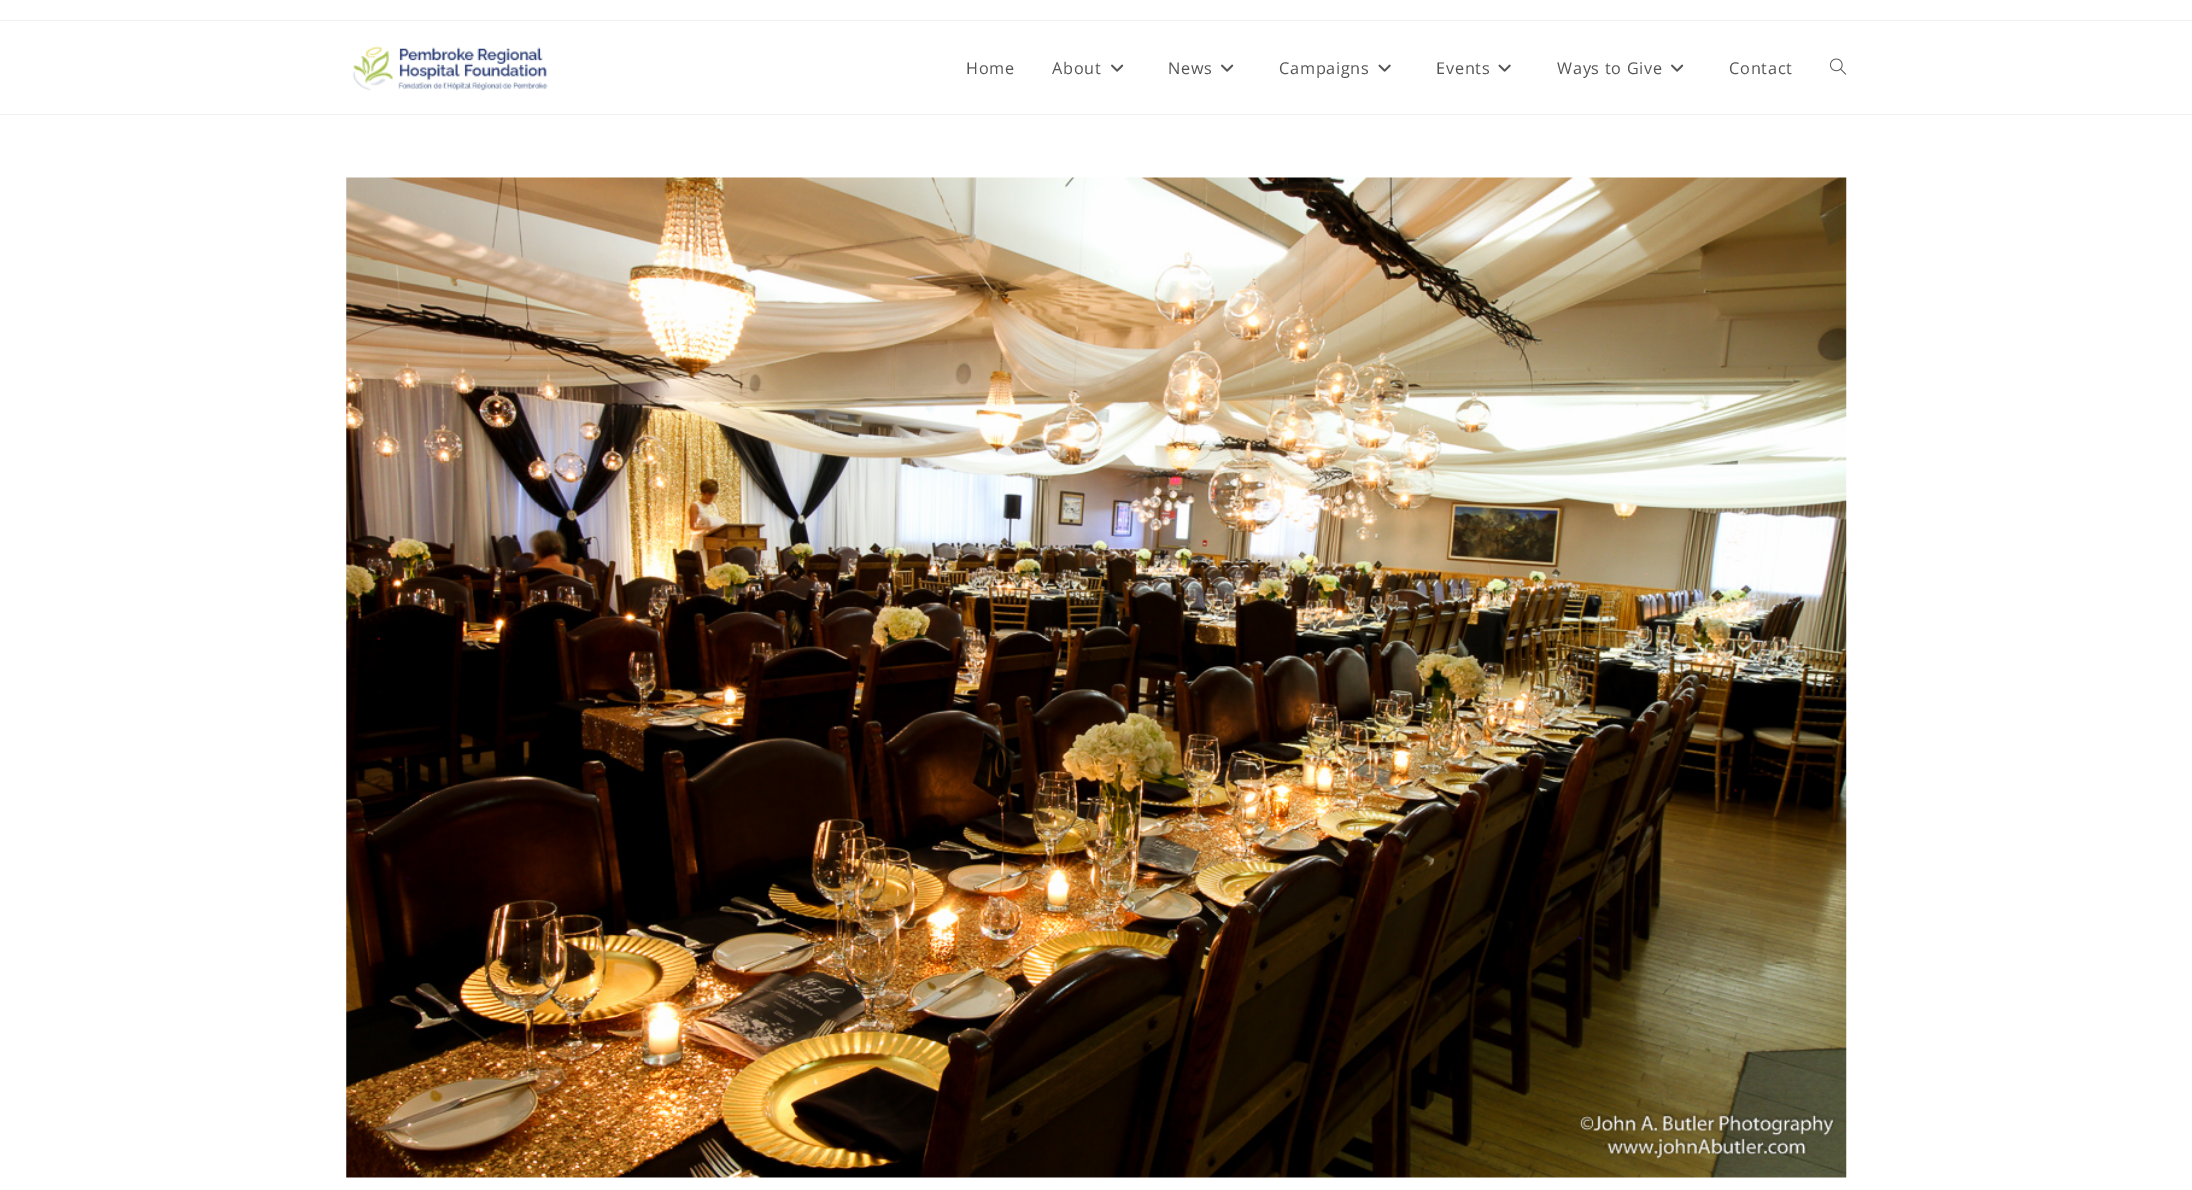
%!PS
<< /PageSize [2192 1190] >> setpagedevice
/rgb { dup -16 bitshift 255 div exch dup -8 bitshift 255 and 255 div exch 255 and 255 div setrgbcolor } def
/font { [ exch dup neg 0 0 3 -1 roll 0 0 ] selectfont } def
/picture { 5 dict begin { /h /w /y /x /name } { exch def } forall
  gsave x y translate w h scale
  w h 8 [w 0 0 h 0 0] name (r) file false 3 colorimage grestore end } def
0 1190 translate 1 -1 scale
4 setmiterlimit
16#FFFFFF rgb
0 0 2192 1190 rectfill
16#F1F1F1 rgb
0 20 2192 1 rectfill
0 114 2192 1 rectfill
(pic1.raw) 352 46 196 45 picture
/OpenSans-Regular 16.25 font
16#555555 rgb
966 74 moveto 0.75 0 (Home) ashow
1052 74 moveto 0.75 0 (About) ashow
(pic2.raw) 1111 64 13 8 picture
1168 74 moveto 0.75 0 (News) ashow
(pic2.raw) 1221 64 13 8 picture
1279 74 moveto 0.75 0 (Campaigns) ashow
(pic3.raw) 1378 64 13 8 picture
1436 74 moveto 0.75 0 (Events) ashow
(pic3.raw) 1498 64 13 8 picture
1557 74 moveto 0.75 0 (Ways to Give) ashow
(pic2.raw) 1671 64 13 8 picture
1729 74 moveto 0.75 0 (Contact) ashow
(pic4.raw) 1830 58 17 17 picture
(pic5.raw) 346 177 1501 1001 picture
showpage
